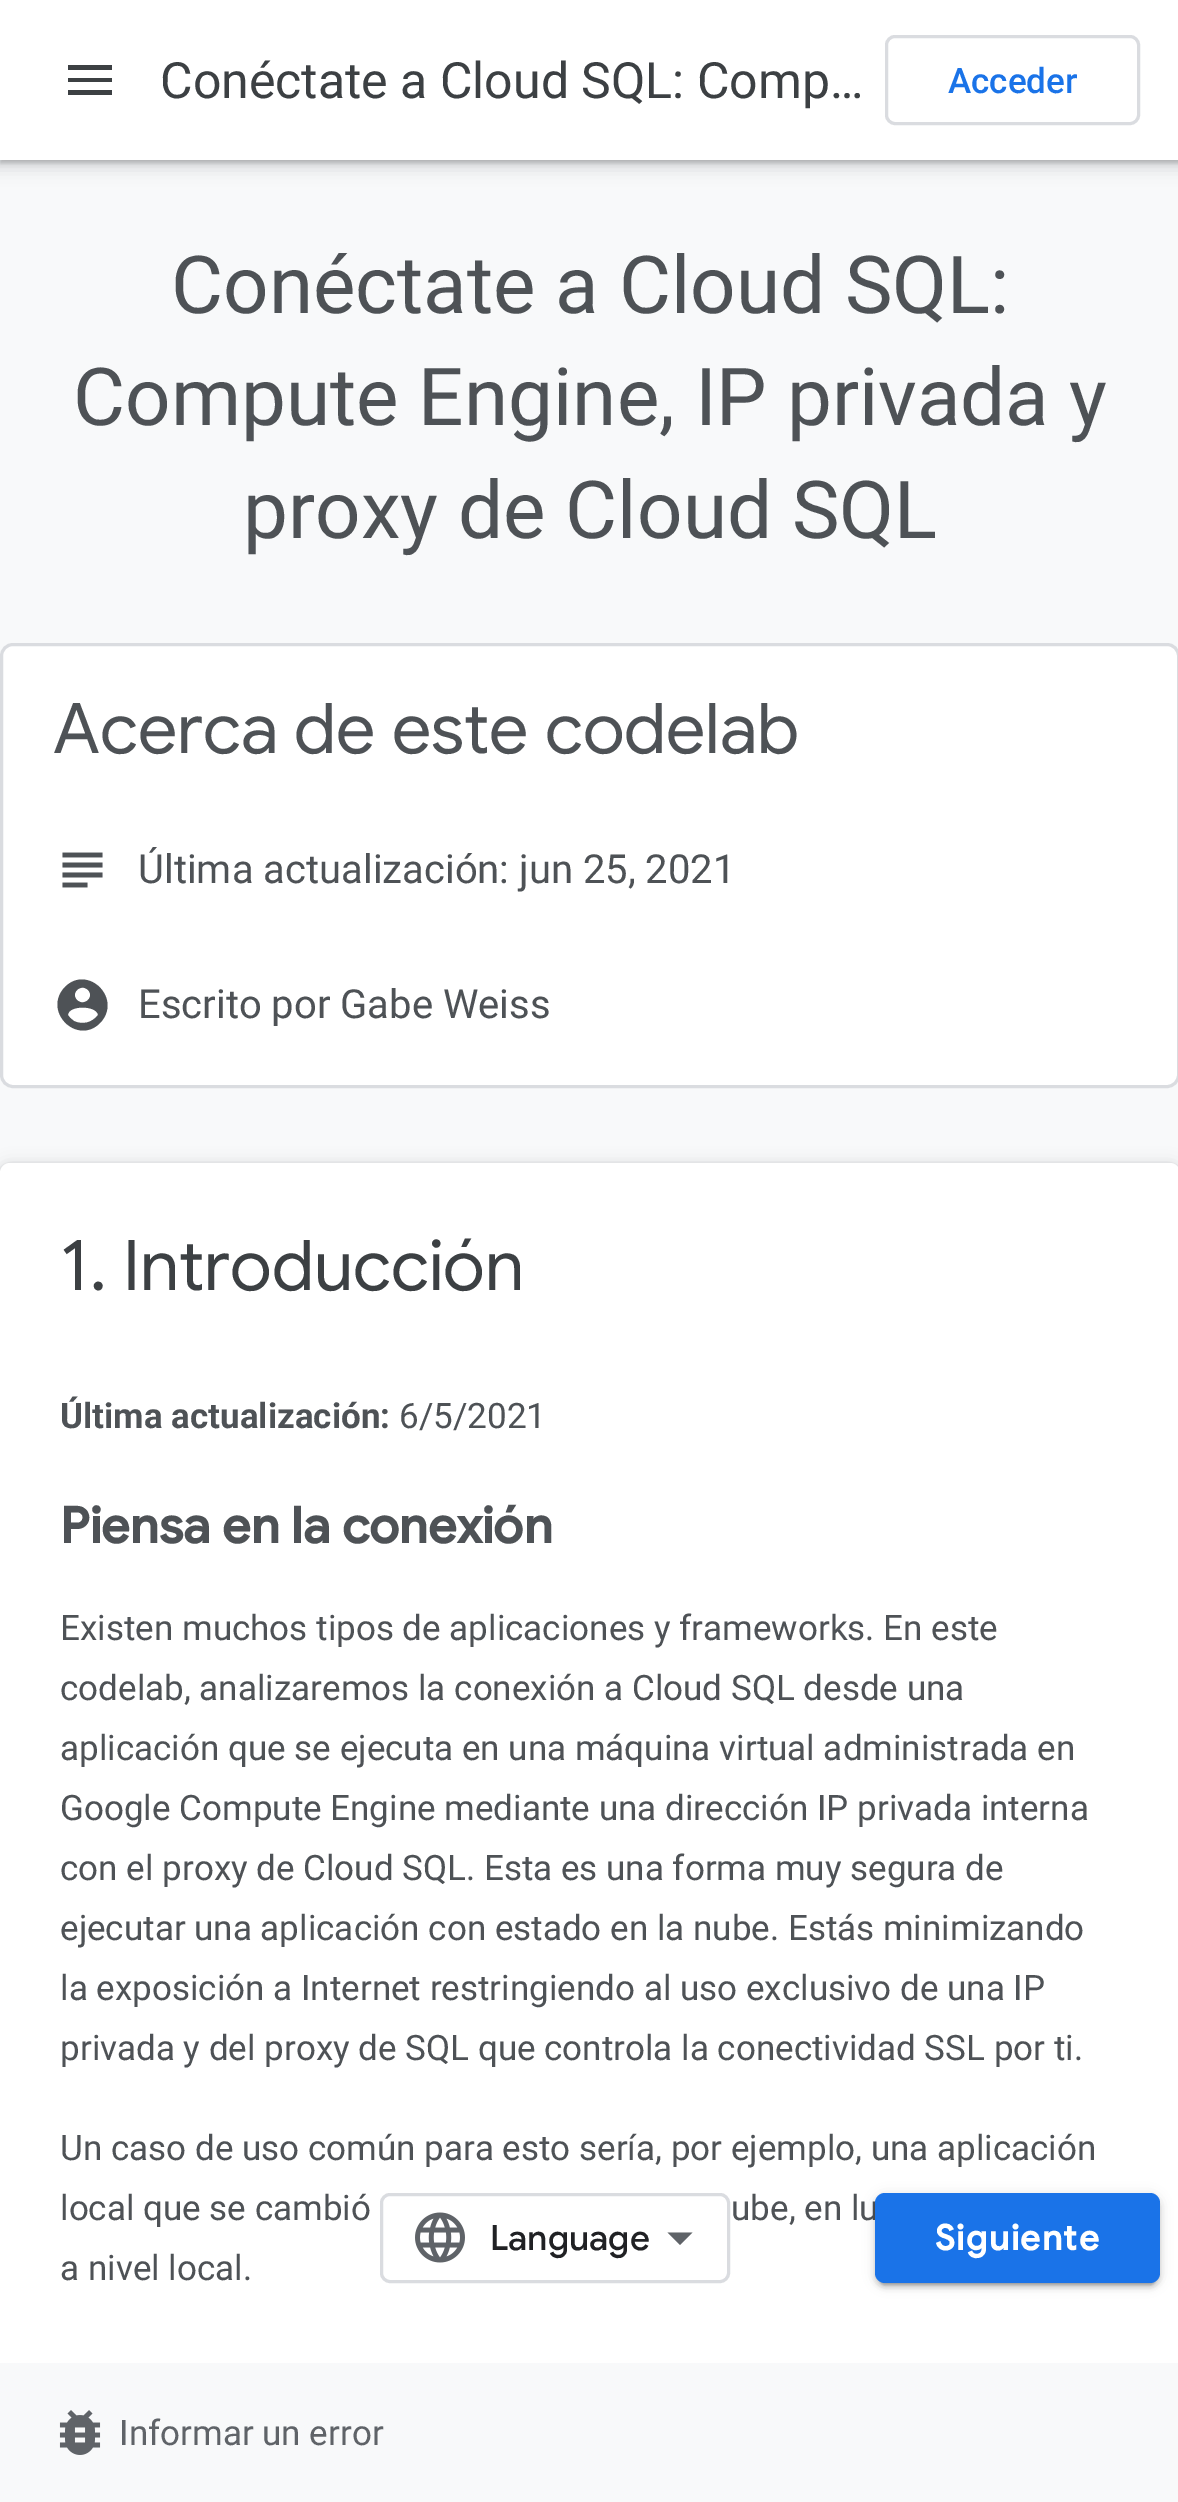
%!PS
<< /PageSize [1178 2502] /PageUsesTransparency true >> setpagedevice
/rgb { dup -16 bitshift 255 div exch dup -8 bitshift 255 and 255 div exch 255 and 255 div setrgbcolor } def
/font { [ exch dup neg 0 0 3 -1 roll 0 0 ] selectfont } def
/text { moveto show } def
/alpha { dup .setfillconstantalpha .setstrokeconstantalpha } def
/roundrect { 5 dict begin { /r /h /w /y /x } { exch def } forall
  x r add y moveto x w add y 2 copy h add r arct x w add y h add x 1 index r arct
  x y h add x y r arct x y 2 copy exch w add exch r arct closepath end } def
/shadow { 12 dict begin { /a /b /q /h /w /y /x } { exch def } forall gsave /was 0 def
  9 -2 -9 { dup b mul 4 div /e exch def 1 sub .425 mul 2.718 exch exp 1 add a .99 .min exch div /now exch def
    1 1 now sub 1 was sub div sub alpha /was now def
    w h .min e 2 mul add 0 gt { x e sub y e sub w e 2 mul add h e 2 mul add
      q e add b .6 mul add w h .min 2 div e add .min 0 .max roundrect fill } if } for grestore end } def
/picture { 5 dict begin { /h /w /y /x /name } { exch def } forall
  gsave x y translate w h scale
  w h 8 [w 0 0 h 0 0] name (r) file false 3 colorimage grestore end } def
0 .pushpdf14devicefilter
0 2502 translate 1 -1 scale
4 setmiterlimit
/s1 { /Roboto-Regular 50 font 16#3C4043 rgb } def
/s2 { /Roboto-Medium 35 font 16#1A73E8 rgb } def
/s3 { /Roboto-Regular 80 font 16#4E5256 rgb } def
/s4 { /GoogleSans-Regular 70 font 16#4E5256 rgb } def
/s5 { /Roboto-Regular 40 font 16#4E5256 rgb } def
/s6 { /GoogleSans-Regular 70 font 16#3C4043 rgb } def
/s7 { /Roboto-Bold 35 font 16#4E5256 rgb } def
/s8 { /Roboto-Regular 35 font 16#4E5256 rgb } def
/s9 { /GoogleSans-Bold 50 font 16#4E5256 rgb } def
/s10 { /GoogleSans-Medium 35 font 16#202124 rgb } def
/s11 { /Roboto-Regular 35 font 16#5F6368 rgb } def
16#F8F9FA rgb
0 0 1178 2502 rectfill
16#3C4043 rgb
-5 0 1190 170 0 7.5 0.15 shadow
0 3 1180 160 0 2.5 0.3 shadow
16#FFFFFF rgb
0 0 1178 160 rectfill
16#3C4043 rgb
68 65 moveto 112 65 lineto 112 70 lineto 68 70 lineto closepath 68 82 moveto 68 78 lineto 112 78 lineto 112 82 lineto closepath 68 95 moveto 68 90 lineto 112 90 lineto 112 95 lineto closepath fill
s1
(Conéctate a Cloud SQL: Comp…) 160 98 text
16#DADCE0 rgb
3 setlinewidth
886.5 36.5 252 87 8.5 roundrect stroke
s2
(Acceder) 948 93 text
s3
(Conéctate a Cloud SQL:) 171 313 text
(Compute Engine, IP privada y) 73 425 text
(proxy de Cloud SQL) 243 538 text
16#FFFFFF rgb
1.5 644.5 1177 442 11.5 roundrect gsave fill grestore
16#DADCE0 rgb
stroke
s4
(Acerca de este codelab) 53 753 text
(pic1.raw) 62 852 41 36 picture
s5
(Última actualización: jun 25, 2021) 138 883 text
74 1021 moveto 82 1025 92 1023 98 1015 curveto 97 1005 68 1005 68 1015 curveto 69 1017 71 1019 74 1021 curveto closepath 88 990 moveto 81 983 70 993 77 1000 curveto 84 1007 95 997 88 990 curveto closepath 65 987 moveto 88 964 123 999 100 1023 curveto 77 1046 42 1011 65 987 curveto closepath fill
(Escrito por Gabe Weiss) 138 1018 text
(pic3.raw) 59 2410 42 45 picture
gsave
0 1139 moveto 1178 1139 lineto 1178 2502 lineto 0 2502 lineto closepath 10 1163 moveto 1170 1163 lineto 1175.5 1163 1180 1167.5 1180 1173 curveto 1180 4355 lineto 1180 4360.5 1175.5 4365 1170 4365 curveto 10 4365 lineto 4.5 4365 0 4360.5 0 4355 curveto 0 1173 lineto 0 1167.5 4.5 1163 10 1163 curveto closepath eoclip newpath
16#3C4043 rgb
-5 1163 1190 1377 15 7.5 0.15 shadow
grestore
gsave
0 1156 moveto 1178 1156 lineto 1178 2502 lineto 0 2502 lineto closepath 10 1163 moveto 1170 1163 lineto 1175.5 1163 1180 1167.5 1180 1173 curveto 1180 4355 lineto 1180 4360.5 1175.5 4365 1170 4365 curveto 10 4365 lineto 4.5 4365 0 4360.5 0 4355 curveto 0 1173 lineto 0 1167.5 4.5 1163 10 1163 curveto closepath eoclip newpath
16#3C4043 rgb
0 1165 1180 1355 10 2.5 0.3 shadow
grestore
16#FFFFFF rgb
10 1163 moveto 1170 1163 lineto 1175.5 1163 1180 1167.5 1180 1173 curveto 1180 2363 lineto 0 2363 lineto 0 1173 lineto 0 1167.5 4.5 1163 10 1163 curveto closepath fill
s6
(1. Introducción) 60 1290 text
s7
(Última actualización:) 60 1428 text
s8
(6/5/2021) 399 1428 text
s9
(Piensa en la conexión) 60 1543 text
s8
(Existen muchos tipos de aplicaciones y frameworks. En este) 60 1640 text
(codelab, analizaremos la conexión a Cloud SQL desde una) 60 1700 text
(aplicación que se ejecuta en una máquina virtual administrada en) 60 1760 text
(Google Compute Engine mediante una dirección IP privada interna) 60 1820 text
(con el proxy de Cloud SQL. Esta es una forma muy segura de) 60 1880 text
(ejecutar una aplicación con estado en la nube. Estás minimizando) 60 1940 text
(la exposición a Internet restringiendo al uso exclusivo de una IP) 60 2000 text
(privada y del proxy de SQL que controla la conectividad SSL por ti.) 60 2060 text
(Un caso de uso común para esto sería, por ejemplo, una aplicación) 60 2160 text
(local que se cambió) 60 2220 text
(ube, en lu) 731 2220 text
(a nivel local.) 60 2280 text
16#DADCE0 rgb
381.5 2194.5 347 87 8.5 roundrect stroke
(pic2.raw) 415 2212 50 51 picture
s10
(Language) 490 2250 text
16#5F6368 rgb
680 2245 moveto 667.5 2232.5 lineto 692.5 2232.5 lineto closepath fill
16#000000 rgb
880 2205 275 80 5 1 0.2 shadow
875 2195 285 90 10 6 0.12 shadow
875 2198 285 90 10 2.5 0.14 shadow
16#1A73E8 rgb
875 2193 285 90 10 roundrect fill
/GoogleSans-Bold 35 font
16#FFFFFF rgb
935 2250 moveto 1.5 0 (Siguiente) ashow
s11
(Informar un error) 119 2445 text
.poppdf14devicefilter showpage
